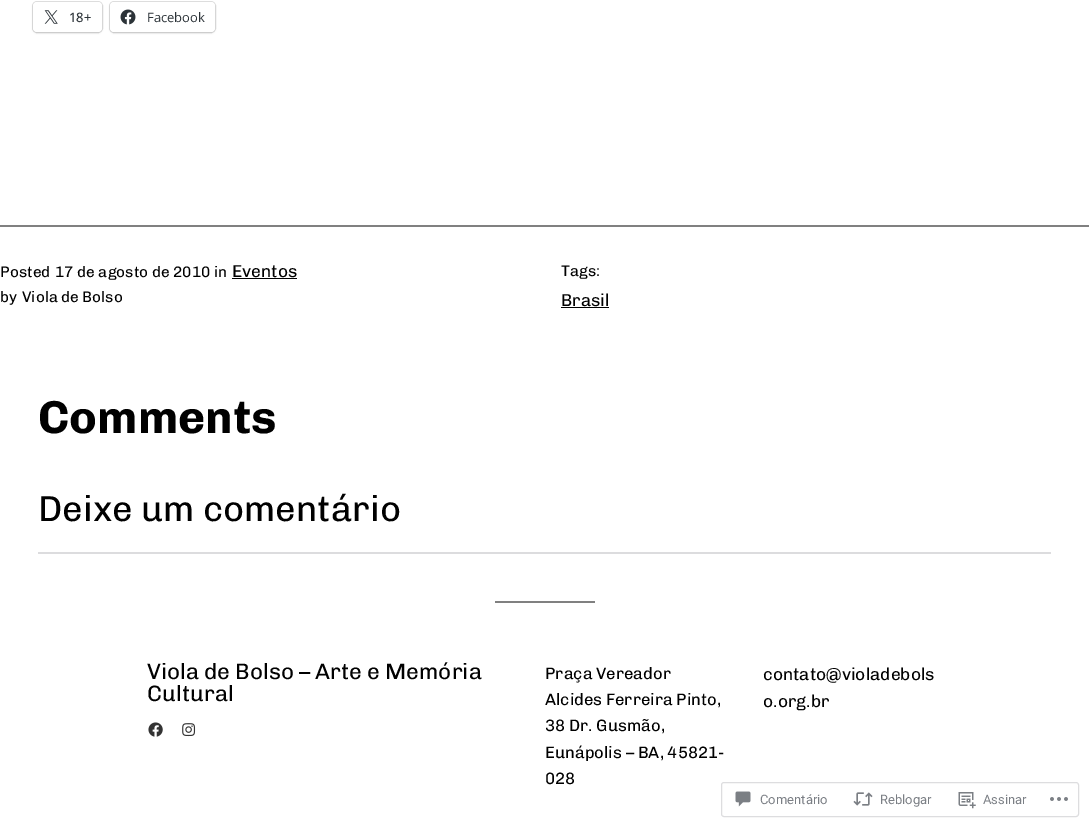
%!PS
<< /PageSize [1089 827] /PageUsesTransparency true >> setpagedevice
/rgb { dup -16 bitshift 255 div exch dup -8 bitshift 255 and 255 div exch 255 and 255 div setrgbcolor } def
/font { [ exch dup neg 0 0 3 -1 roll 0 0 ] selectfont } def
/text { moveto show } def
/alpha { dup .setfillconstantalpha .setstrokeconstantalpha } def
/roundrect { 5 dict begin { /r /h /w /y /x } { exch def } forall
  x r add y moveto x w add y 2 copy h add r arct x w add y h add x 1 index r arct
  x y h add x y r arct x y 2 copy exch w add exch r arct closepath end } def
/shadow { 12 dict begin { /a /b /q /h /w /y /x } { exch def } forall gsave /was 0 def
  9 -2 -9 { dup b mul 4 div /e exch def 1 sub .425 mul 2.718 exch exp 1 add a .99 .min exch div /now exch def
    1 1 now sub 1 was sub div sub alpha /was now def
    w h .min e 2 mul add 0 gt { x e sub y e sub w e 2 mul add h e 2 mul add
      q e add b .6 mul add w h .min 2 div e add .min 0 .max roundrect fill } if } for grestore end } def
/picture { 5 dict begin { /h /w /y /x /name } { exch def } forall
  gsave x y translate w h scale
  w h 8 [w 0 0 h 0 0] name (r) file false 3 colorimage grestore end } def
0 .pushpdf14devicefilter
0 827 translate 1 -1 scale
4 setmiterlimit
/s1 { /OpenSans-Medium 13 font 16#2C3338 rgb } def
/s2 { /OpenSans-Regular 13 font 16#2C3338 rgb } def
/s3 { /Chivo-Regular 15.25 font 16#000000 rgb } def
/s4 { /Chivo-Regular 17.25 font 16#000000 rgb } def
/s5 { /Chivo-Bold 46.25 font 16#000000 rgb } def
/s6 { /Chivo-Regular 36 font 16#000000 rgb } def
/s7 { /Chivo-Regular 22.3 font 16#000000 rgb } def
/s8 { /Chivo-Regular 16.5 font 16#000000 rgb } def
/s9 { /Roboto-Regular 13 font 16#7B7F85 rgb } def
16#FFFFFF rgb
0 0 1089 827 rectfill
16#E0E0E0 rgb
32.5 1.5 70 31 4.5 roundrect stroke
16#000000 rgb
33 3 69 30 4 1 0.12 shadow
16#FFFFFF rgb
33 2 69 30 4 roundrect fill
(pic1.raw) 44 10 14 14 picture
s1
(18+) 69 22 text
16#E0E0E0 rgb
109.5 1.5 106 31 4.5 roundrect stroke
16#000000 rgb
110 3 105 30 4 1 0.12 shadow
16#FFFFFF rgb
110 2 105 30 4 roundrect fill
(pic2.raw) 120 9 16 16 picture
s2
(Facebook) 147 22 text
16#808080 rgb
0 225 1089 2 rectfill
s3
(Posted) 0 277 text
(17 de agosto de 2010) 55 277 text
(in) 214 277 text
s4
(Eventos) 232 277 text
232 278 65 1 rectfill
s3
(by) 0 302 text
(Viola de Bolso) 22 302 text
(Tags:) 561 276 text
s4
(Brasil) 561 306 text
561 307 48 1 rectfill
s5
(Comments) 38 433 text
s6
(Deixe um comentário) 38 521 text
16#DCDCDE rgb
38 552 1013 2 rectfill
16#808080 rgb
495 601 100 2 rectfill
s7
(Viola de Bolso – Arte e Memória) 147 679 text
(Cultural) 147 701 text
(pic3.raw) 148 722 15 15 picture
(pic4.raw) 182 723 14 14 picture
s8
(Praça Vereador) 545 679 text
(Alcides Ferreira Pinto,) 545 705 text
(38 Dr. Gusmão,) 545 731 text
(Eunápolis – BA, 45821-) 545 758 text
(028) 545 784 text
s4
(contato@violadebols) 763 680 text
(o.org.br) 763 707 text
16#DDDDDF rgb
721.5 782.5 357 34 2.5 roundrect stroke
(pic5.raw) 735 791 16 16 picture
s9
(Comentário) 760 804 text
(pic6.raw) 853 792 20 14 picture
(Reblogar) 880 804 text
(pic7.raw) 958 792 18 17 picture
(Assinar) 983 804 text
(pic8.raw) 1050 797 18 4 picture
.poppdf14devicefilter showpage
